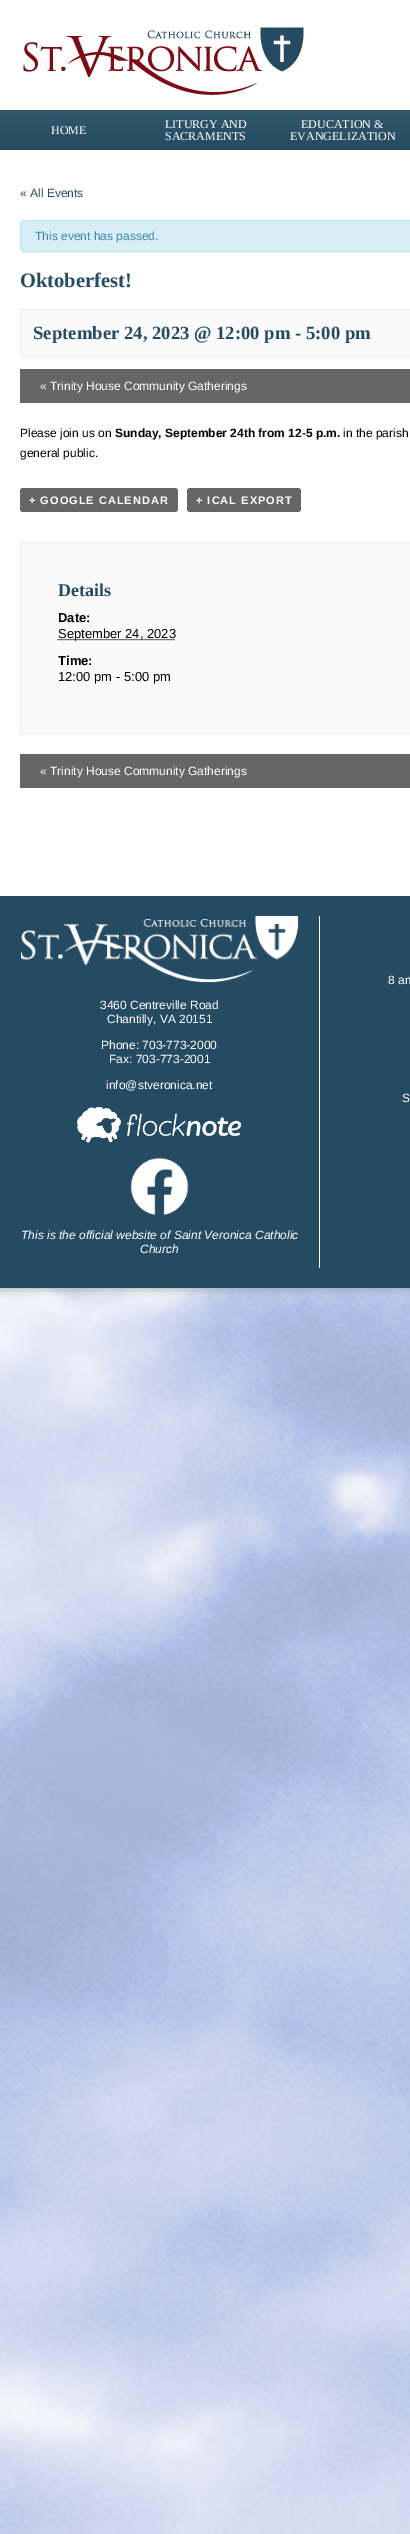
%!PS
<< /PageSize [410 2534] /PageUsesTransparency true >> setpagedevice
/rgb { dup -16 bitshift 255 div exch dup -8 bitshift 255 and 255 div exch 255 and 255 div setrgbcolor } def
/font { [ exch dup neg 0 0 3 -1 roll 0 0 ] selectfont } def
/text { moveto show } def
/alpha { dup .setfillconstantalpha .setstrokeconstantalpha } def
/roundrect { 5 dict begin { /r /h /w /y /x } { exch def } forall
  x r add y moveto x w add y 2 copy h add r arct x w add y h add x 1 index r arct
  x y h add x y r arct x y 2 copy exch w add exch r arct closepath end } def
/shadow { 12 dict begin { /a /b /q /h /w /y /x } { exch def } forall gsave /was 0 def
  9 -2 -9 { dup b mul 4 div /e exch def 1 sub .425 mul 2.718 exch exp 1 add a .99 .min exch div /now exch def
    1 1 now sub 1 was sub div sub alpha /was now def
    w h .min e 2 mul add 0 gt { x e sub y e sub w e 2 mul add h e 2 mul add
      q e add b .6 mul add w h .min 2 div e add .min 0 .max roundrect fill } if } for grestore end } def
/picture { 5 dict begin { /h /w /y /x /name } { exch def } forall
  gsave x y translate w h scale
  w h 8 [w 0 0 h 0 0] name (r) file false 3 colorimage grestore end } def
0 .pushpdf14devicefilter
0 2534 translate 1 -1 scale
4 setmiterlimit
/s1 { /LiberationSerif-Regular 12 font 16#FFFFFF rgb } def
/s2 { /LiberationSans-Regular 12 font 16#254B62 rgb } def
/s3 { /LiberationSans-Regular 12 font 16#3A87AD rgb } def
/s4 { /LiberationSerif-Bold 20.5 font 16#254B62 rgb } def
/s5 { /LiberationSerif-Bold 18.7 font 16#254B62 rgb } def
/s6 { /LiberationSans-Regular 12 font 16#FFFFFF rgb } def
/s7 { /LiberationSans-Regular 12 font 16#000000 rgb } def
/s8 { /LiberationSans-Bold 12 font 16#000000 rgb } def
/s9 { /LiberationSerif-Bold 18 font 16#254B62 rgb } def
/s10 { /LiberationSans-Bold 13 font 16#000000 rgb } def
/s11 { /LiberationSans-Regular 13 font 16#000000 rgb } def
/s12 { /LiberationSans-Italic 12 font 16#FFFFFF rgb } def
16#FFFFFF rgb
0 0 410 2534 rectfill
(pic1.raw) 0 1288 410 1246 picture
16#999999 rgb
0 0 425 1288 0 5 1 shadow
16#FFFFFF rgb
0 0 410 896 rectfill
(pic2.raw) 23 27 281 68 picture
gsave 0 110 moveto 410 110 lineto 410 150 lineto 0 150 lineto closepath clip newpath
<< /ShadingType 2 /ColorSpace /DeviceRGB /Coords [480 110 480 150] /Extend [true true] /Function << /FunctionType 2 /Domain [0 1] /C0 [0.196 0.345 0.42] /C1 [0.145 0.294 0.384] /N 1 >> >> shfill grestore
s1
(HOME) 51 134 text
(LITURGY AND) 165 128 text
(SACRAMENTS) 165 140 text
(EDUCATION &) 301 128 text
(EVANGELIZATION) 290 140 text
s2
(« All Events) 20 197 text
16#D9EDF7 rgb
20.5 220.5 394 31 3.5 roundrect gsave fill grestore
16#BCE8F1 rgb
stroke
s3
(This event has passed.) 35 240 text
s4
(Oktoberfest!) 20 287 text
16#FAFAFA rgb
20.5 309.5 moveto 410.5 309.5 lineto 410.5 356.5 lineto 20.5 356.5 lineto closepath gsave fill grestore
16#EEEEEE rgb
stroke
s5
(September 24, 2023 @ 12:00 pm - 5:00 pm) 33 339 text
16#666666 rgb
20 369 390 34 rectfill
s6
(« Trinity House Community Gatherings) 40 390 text
s7
(Please join us on) 20 437 text
s8
(Sunday, September 24th from 12-5 p.m.) 115 437 text
s7
(in the parish) 343 437 text
(general public.) 20 457 text
16#666666 rgb
20 488 158 24 3 roundrect fill
/LiberationSans-Bold 11 font
16#FFFFFF rgb
29 504 moveto 1 0 (+ GOOGLE CALENDAR) ashow
16#666666 rgb
187 488 114 24 3 roundrect fill
16#FFFFFF rgb
196 504 moveto 1 0 (+ ICAL EXPORT) ashow
16#FAFAFA rgb
20.5 542.5 moveto 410.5 542.5 lineto 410.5 733.5 lineto 20.5 733.5 lineto closepath gsave fill grestore
16#EEEEEE rgb
stroke
s9
(Details) 58 596 text
s10
(Date:) 58 622 text
[1 1] 0 setdash
57.5 639.5 moveto 175.5 639.5 lineto stroke
s11
(September 24, 2023) 58 638 text
s10
(Time:) 58 665 text
s11
(12:00 pm - 5:00 pm) 58 681 text
16#666666 rgb
20 754 390 34 rectfill
s6
(« Trinity House Community Gatherings) 40 775 text
16#254B62 rgb
0 896 410 392 rectfill
16#FFFFFF rgb
319 916 1 352 rectfill
(pic3.raw) 21 916 278 67 picture
(3460 Centreville Road) 100 1009 text
(Chantilly, VA 20151) 107 1023 text
(Phone: 703-773-2000) 101 1049 text
(Fax: 703-773-2001) 109 1063 text
(info@stveronica.net) 106 1089 text
(pic4.raw) 77 1107 164 36 picture
(pic5.raw) 130 1157 59 59 picture
s12
(This is the official website of Saint Veronica Catholic) 21 1239 text
(Church) 140 1253 text
s6
(8 am) 388 984 text
(S) 402 1102 text
.poppdf14devicefilter showpage
